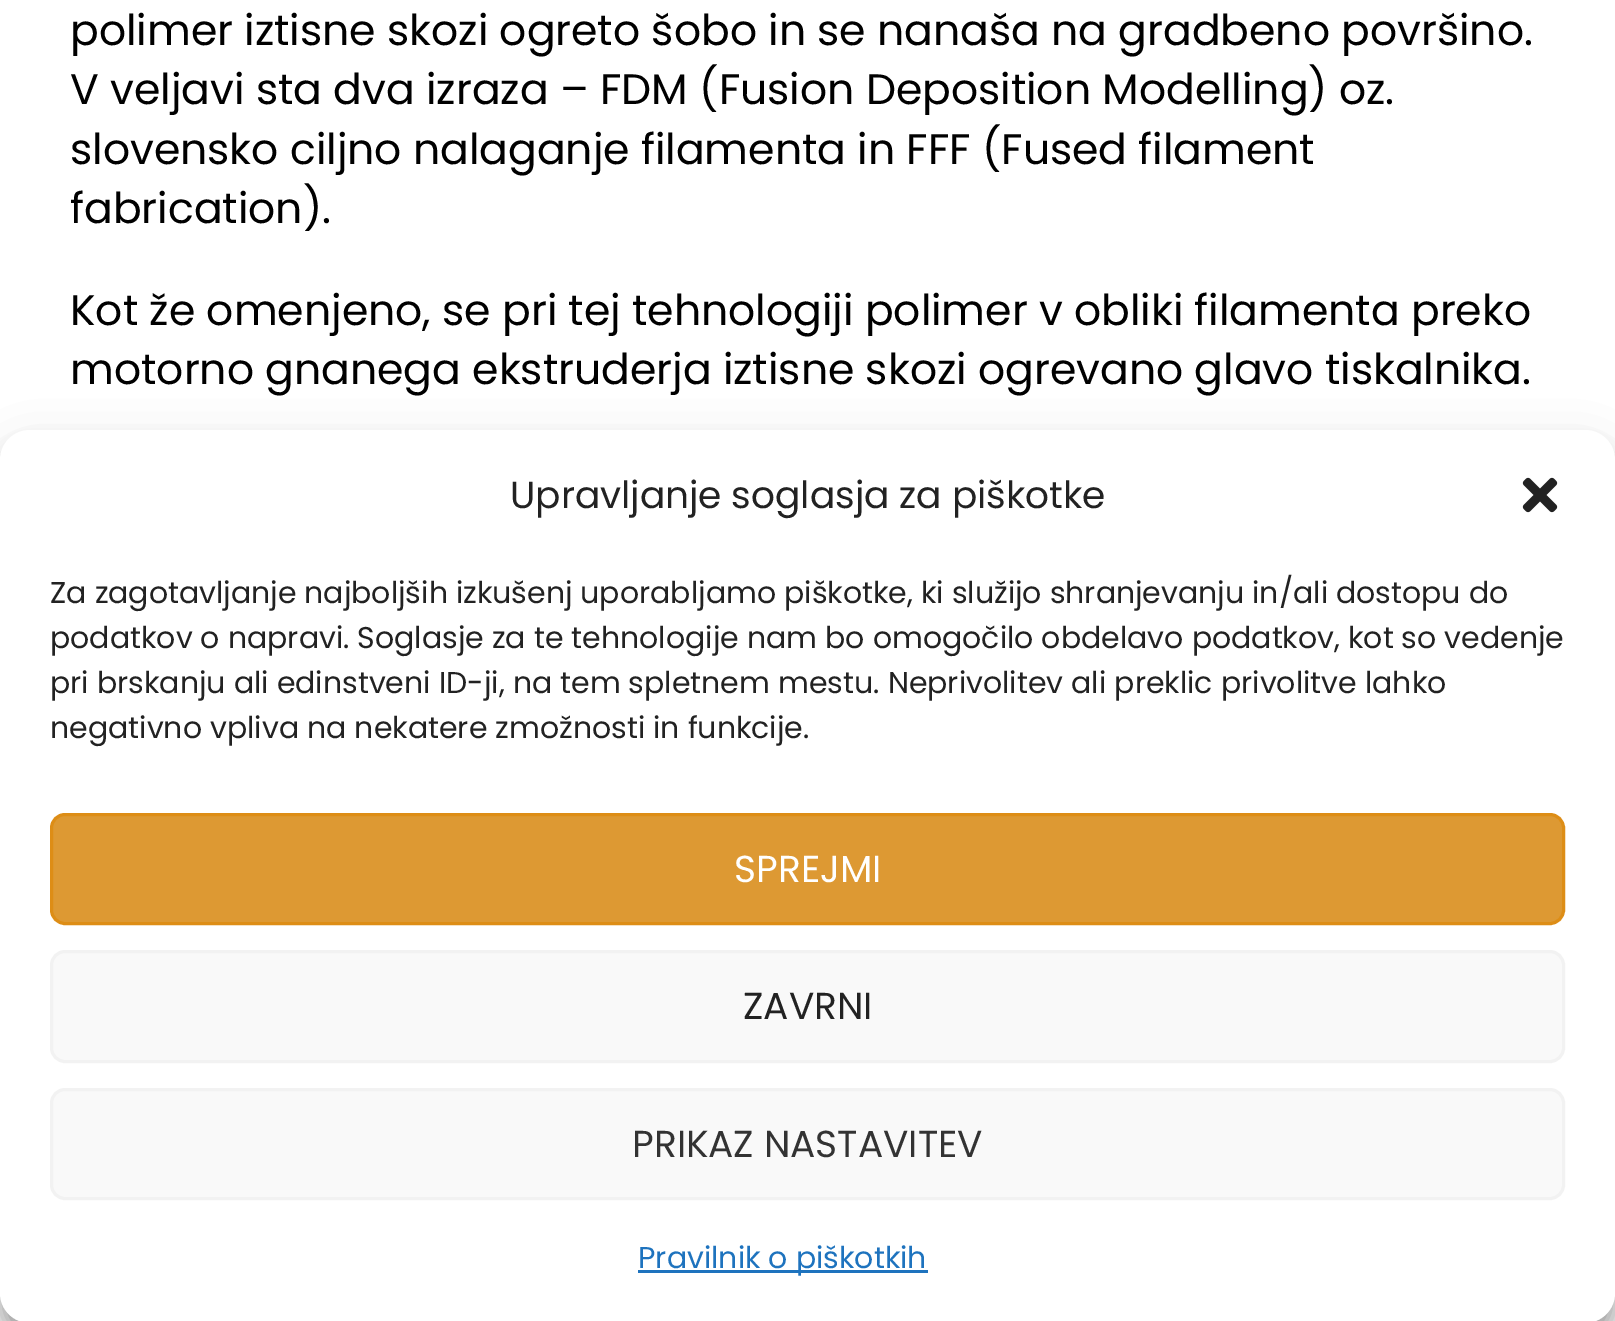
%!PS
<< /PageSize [1615 1321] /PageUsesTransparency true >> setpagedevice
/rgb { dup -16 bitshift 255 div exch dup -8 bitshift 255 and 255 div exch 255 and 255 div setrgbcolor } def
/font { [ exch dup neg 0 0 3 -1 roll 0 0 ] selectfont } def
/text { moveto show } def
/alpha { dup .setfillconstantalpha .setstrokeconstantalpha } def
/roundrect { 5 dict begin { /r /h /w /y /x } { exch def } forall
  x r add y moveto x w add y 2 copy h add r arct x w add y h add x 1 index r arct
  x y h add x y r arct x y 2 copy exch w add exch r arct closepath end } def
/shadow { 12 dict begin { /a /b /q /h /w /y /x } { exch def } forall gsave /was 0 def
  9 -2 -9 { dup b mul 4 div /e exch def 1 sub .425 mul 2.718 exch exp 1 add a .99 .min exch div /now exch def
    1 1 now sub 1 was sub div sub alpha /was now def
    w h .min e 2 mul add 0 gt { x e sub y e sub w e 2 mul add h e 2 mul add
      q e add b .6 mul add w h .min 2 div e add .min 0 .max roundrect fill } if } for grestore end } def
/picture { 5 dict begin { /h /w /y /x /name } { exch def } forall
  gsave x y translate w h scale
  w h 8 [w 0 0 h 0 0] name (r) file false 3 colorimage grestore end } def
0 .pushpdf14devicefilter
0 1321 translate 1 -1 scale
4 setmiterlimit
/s1 { /Poppins-Regular 42.5 font 16#000000 rgb } def
/s2 { /Poppins-Regular 37.5 font 16#222222 rgb } def
/s3 { /Poppins-Regular 30 font 16#222222 rgb } def
/s4 { /Poppins-Regular 37.5 font 16#FFFFFF rgb } def
/s5 { /Poppins-Regular 37.5 font 16#333333 rgb } def
/s6 { /Poppins-Regular 30 font 16#1E73BE rgb } def
16#FFFFFF rgb
0 0 1615 1321 rectfill
s1
(polimer iztisne skozi ogreto šobo in se nanaša na gradbeno površino.) 70 45 text
(V veljavi sta dva izraza – FDM \(Fusion Deposition Modelling\) oz.) 70 104 text
(slovensko ciljno nalaganje filamenta in FFF \(Fused filament) 70 164 text
(fabrication\).) 70 223 text
(Kot že omenjeno, se pri tej tehnologiji polimer v obliki filamenta preko) 70 325 text
(motorno gnanega ekstruderja iztisne skozi ogrevano glavo tiskalnika.) 70 384 text
0 445 1615 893 30 7.5 0.23 shadow
0 455 1615 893 30 25 0.19 shadow
16#FFFFFF rgb
0 430 1615 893 30 roundrect fill
s2
(Upravljanje soglasja za piškotke) 510 508 text
(pic1.raw) 1522 477 36 36 picture
s3
(Za zagotavljanje najboljših izkušenj uporabljamo piškotke, ki služijo shranjevanju in/ali dostopu do) 50 603 text
(podatkov o napravi. Soglasje za te tehnologije nam bo omogočilo obdelavo podatkov, kot so vedenje) 50 648 text
(pri brskanju ali edinstveni ID-ji, na tem spletnem mestu. Neprivolitev ali preklic privolitve lahko) 50 693 text
(negativno vpliva na nekatere zmožnosti in funkcije.) 50 738 text
16#DD9933 rgb
51.5 814.5 1512 109 13.5 roundrect gsave fill grestore
16#DD8D16 rgb
3 setlinewidth
stroke
s4
(SPREJMI) 734 882 text
16#F9F9F9 rgb
51.5 951.5 1512 110 13.5 roundrect gsave fill grestore
16#F2F2F2 rgb
stroke
s2
(ZAVRNI) 743 1019 text
16#F9F9F9 rgb
51.5 1089.5 1512 109 13.5 roundrect gsave fill grestore
16#F2F2F2 rgb
stroke
s5
(PRIKAZ NASTAVITEV) 632 1157 text
16#1E73BE rgb
638 1270 290 3 rectfill
s6
(Pravilnik o piškotkih) 638 1268 text
.poppdf14devicefilter showpage
